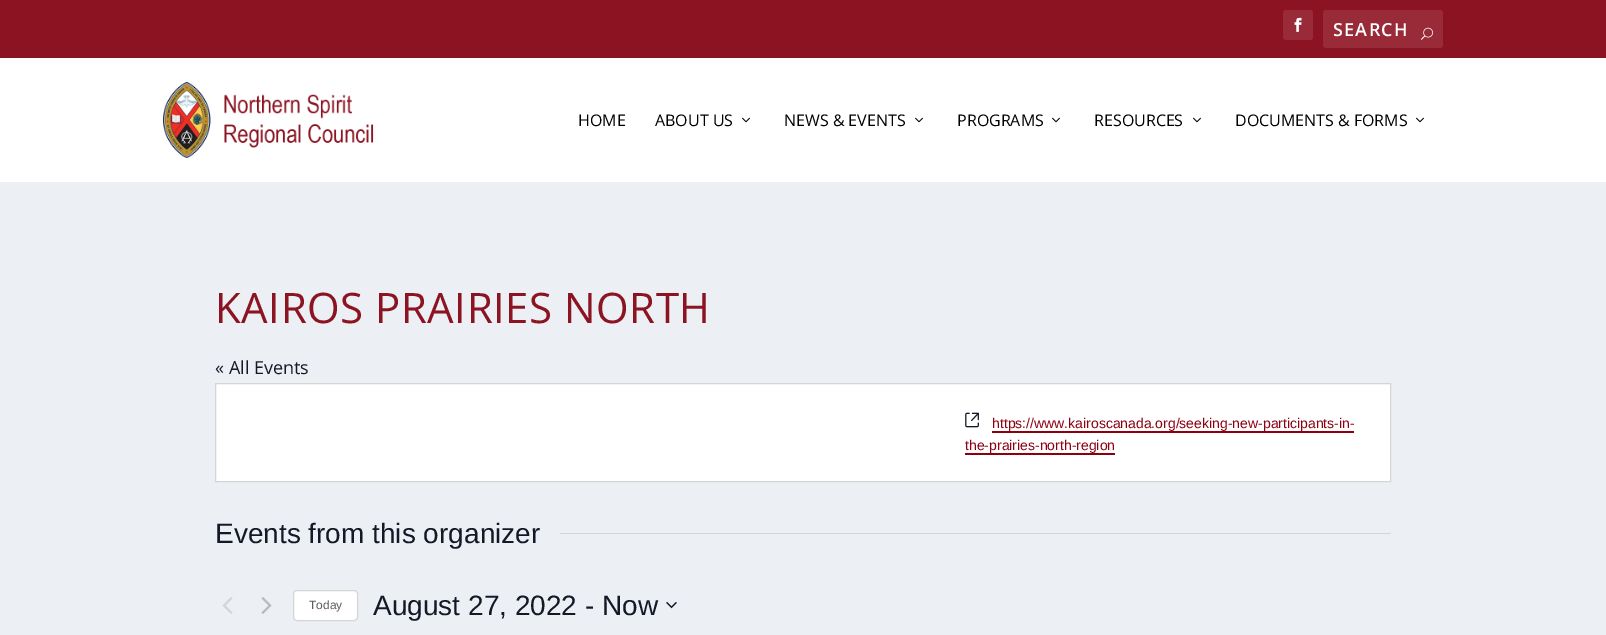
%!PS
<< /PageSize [1606 635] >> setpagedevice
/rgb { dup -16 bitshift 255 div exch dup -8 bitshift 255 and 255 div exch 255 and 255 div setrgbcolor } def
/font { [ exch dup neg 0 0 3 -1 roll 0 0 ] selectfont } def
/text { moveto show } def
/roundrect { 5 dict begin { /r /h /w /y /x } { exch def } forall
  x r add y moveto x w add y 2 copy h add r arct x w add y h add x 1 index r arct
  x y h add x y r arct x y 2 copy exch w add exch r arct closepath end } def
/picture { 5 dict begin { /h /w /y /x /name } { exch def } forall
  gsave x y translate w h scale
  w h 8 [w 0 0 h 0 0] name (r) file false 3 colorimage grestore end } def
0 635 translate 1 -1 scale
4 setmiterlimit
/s1 { /OpenSans-Regular 16 font 16#000000 rgb } def
/s2 { /OpenSans-Regular 18 font 16#141827 rgb } def
/s3 { /LiberationSans-Regular 14 font 16#8C0010 rgb } def
/s4 { /LiberationSans-Regular 28 font 16#141827 rgb } def
/s5 { /LiberationSans-Regular 12 font 16#5D5D5D rgb } def
16#ECF0F5 rgb
0 0 1606 635 rectfill
16#8C1321 rgb
0 0 1606 58 rectfill
16#982B37 rgb
1283 10 30 30 3 roundrect fill
(pic1.raw) 1294 17 8 15 picture
1323 10 120 38 3 roundrect fill
/OpenSans-SemiBold 18 font
16#FFFFFF rgb
1333 36 moveto 1.25 0 (SEARCH) ashow
(pic2.raw) 1421 27 12 13 picture
0 58 1606 124 rectfill
(pic3.raw) 163 82 211 76 picture
s1
(HOME) 578 126 text
(ABOUT US) 655 126 text
(pic4.raw) 742 117 8 6 picture
(NEWS & EVENTS) 784 126 text
(pic4.raw) 915 117 8 6 picture
(PROGRAMS) 957 126 text
(pic4.raw) 1052 117 8 6 picture
(RESOURCES) 1094 126 text
(pic4.raw) 1193 117 8 6 picture
(DOCUMENTS & FORMS) 1235 126 text
(pic4.raw) 1416 117 8 6 picture
/OpenSans-Regular 42 font
16#8C1321 rgb
215 323 moveto 0.5 0 (KAIROS PRAIRIES NORTH) ashow
s2
(« All Events) 215 374 text
16#FFFFFF rgb
215.5 383.5 moveto 1390.5 383.5 lineto 1390.5 481.5 lineto 215.5 481.5 lineto closepath gsave fill grestore
16#D5D5D5 rgb
stroke
(pic5.raw) 965 412 14 16 picture
s3
(https://www.kairoscanada.org/seeking-new-participants-in-) 992 428 text
992 431 362 2 rectfill
(the-prairies-north-region) 965 450 text
965 453 150 2 rectfill
s4
(Events from this organizer) 215 543 text
16#D5D5D5 rgb
560 533 831 1 rectfill
(pic6.raw) 222 597 11 17 picture
(pic7.raw) 261 597 11 17 picture
16#FFFFFF rgb
293.5 590.5 64 30 3.5 roundrect gsave fill grestore
16#D5D5D5 rgb
stroke
s5
(Today) 309 609 text
s4
(August 27, 2022 - Now) 373 615 text
(pic8.raw) 666 601 11 8 picture
showpage
